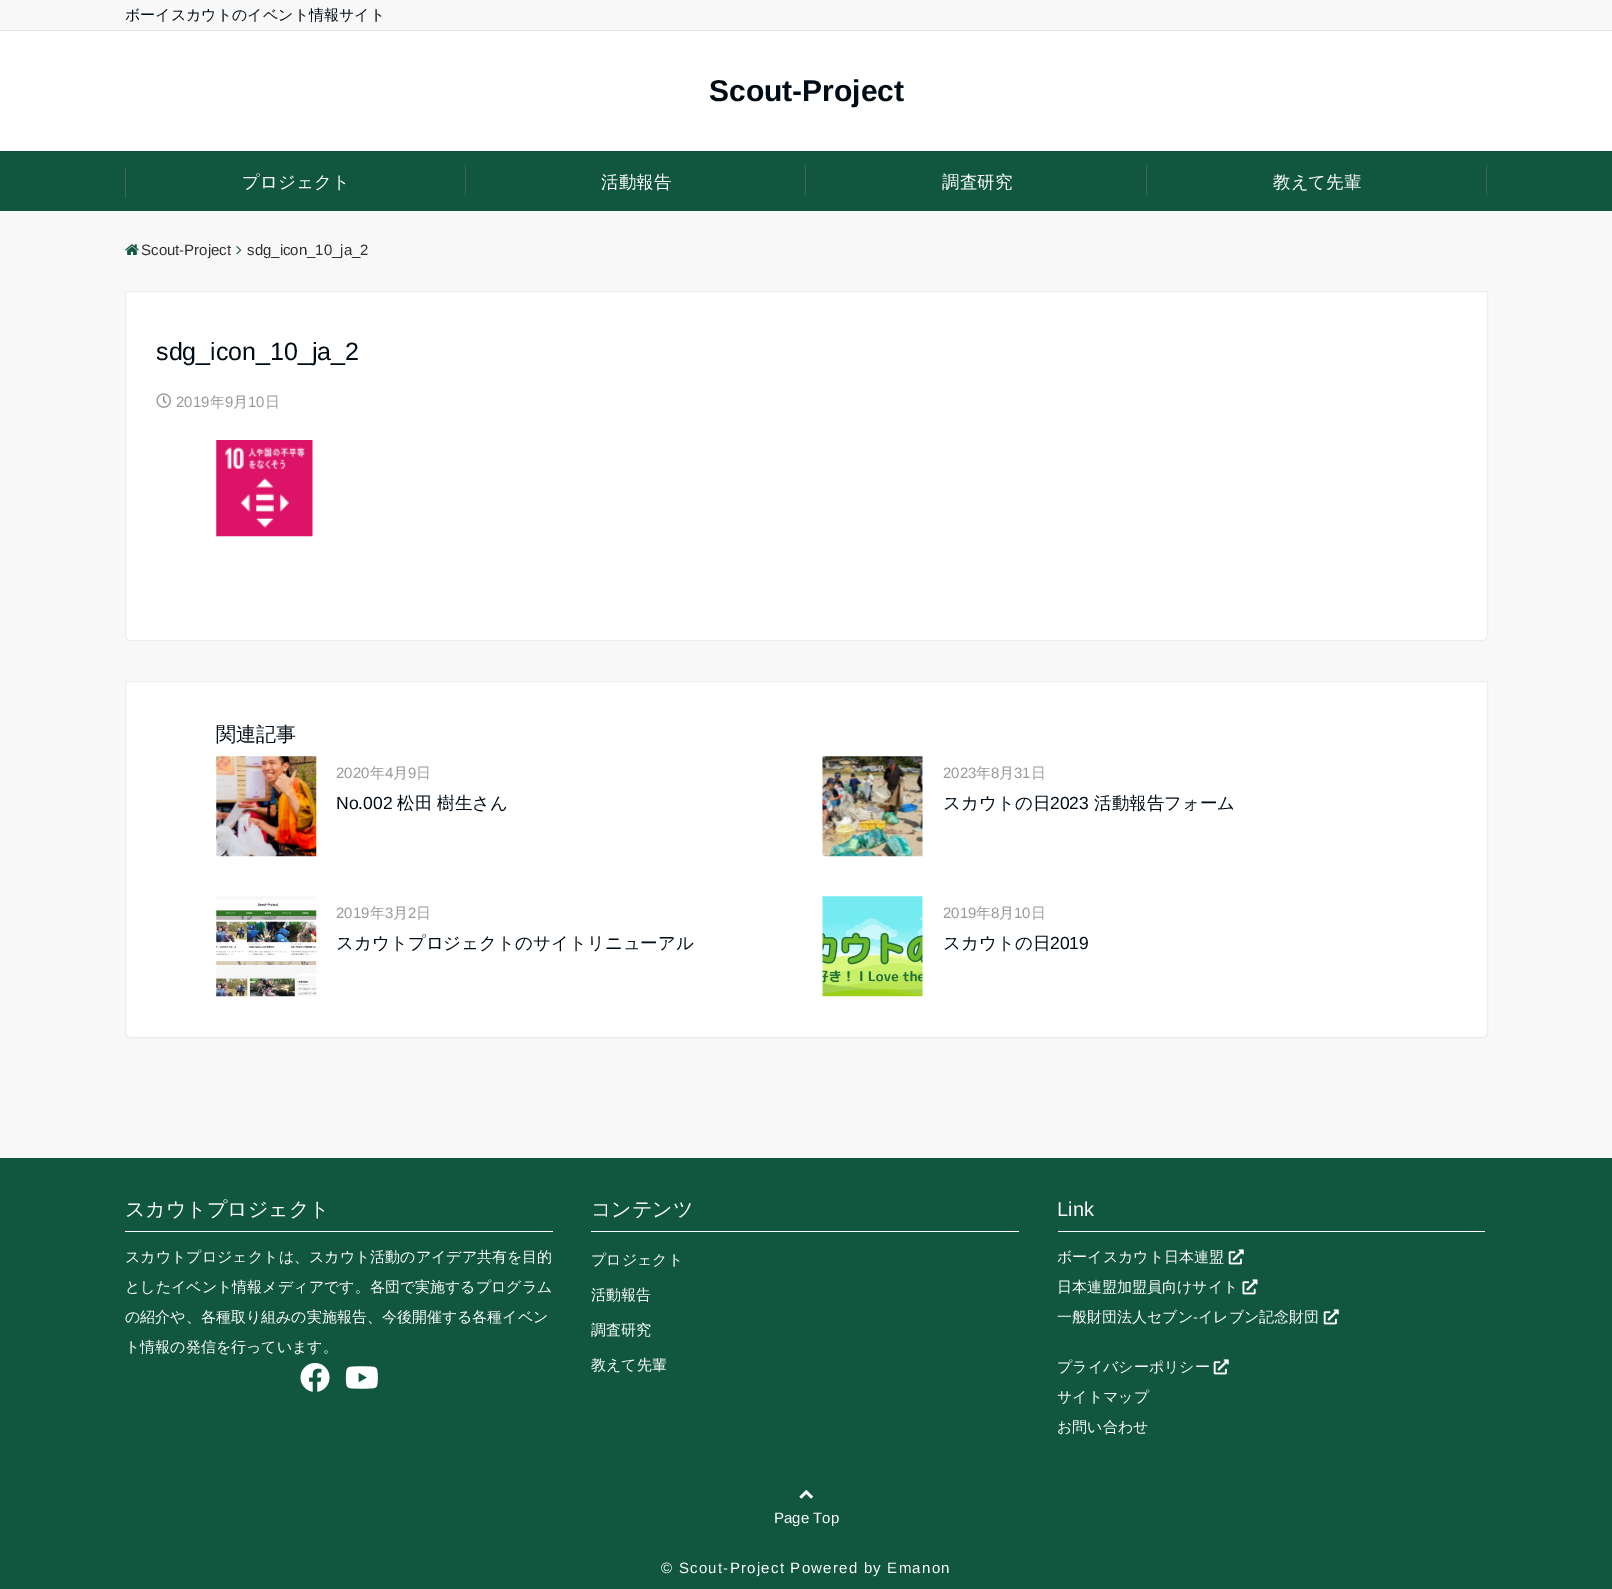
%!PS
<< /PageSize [1612 1589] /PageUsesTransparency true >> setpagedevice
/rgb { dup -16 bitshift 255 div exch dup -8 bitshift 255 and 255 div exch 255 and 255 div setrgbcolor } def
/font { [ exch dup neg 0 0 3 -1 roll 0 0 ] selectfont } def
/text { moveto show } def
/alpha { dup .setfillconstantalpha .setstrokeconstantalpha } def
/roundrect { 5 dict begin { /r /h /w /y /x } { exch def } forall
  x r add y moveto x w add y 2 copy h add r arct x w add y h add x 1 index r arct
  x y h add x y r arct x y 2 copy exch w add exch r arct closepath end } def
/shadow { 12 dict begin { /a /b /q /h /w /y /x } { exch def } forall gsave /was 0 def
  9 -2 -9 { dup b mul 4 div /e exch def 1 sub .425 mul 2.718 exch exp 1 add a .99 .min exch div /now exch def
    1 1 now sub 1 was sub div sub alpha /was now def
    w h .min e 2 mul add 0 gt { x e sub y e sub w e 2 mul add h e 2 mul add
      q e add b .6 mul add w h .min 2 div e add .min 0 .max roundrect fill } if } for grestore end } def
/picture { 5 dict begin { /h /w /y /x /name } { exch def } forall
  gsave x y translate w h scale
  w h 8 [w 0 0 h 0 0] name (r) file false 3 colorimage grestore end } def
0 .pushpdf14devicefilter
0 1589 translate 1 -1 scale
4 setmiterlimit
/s1 { /WenQuanYiZenHei-Medium 15 font 16#000C15 rgb } def
/s2 { /LiberationSans-Bold 30 font 16#000C15 rgb } def
/s3 { /WenQuanYiZenHei-Medium 17.5 font 16#FFFFFF rgb } def
/s4 { /LiberationSans-Regular 15 font 16#303030 rgb } def
/s5 { /LiberationSans-Regular 25 font 16#000C15 rgb } def
/s6 { /LiberationSans-Regular 15 font 16#999999 rgb } def
/s7 { /WenQuanYiZenHei-Medium 15 font 16#999999 rgb } def
/s8 { /WenQuanYiZenHei-Medium 20 font 16#000C15 rgb } def
/s9 { /LiberationSans-Regular 17.5 font 16#000C15 rgb } def
/s10 { /WenQuanYiZenHei-Medium 17.5 font 16#000C15 rgb } def
/s11 { /WenQuanYiZenHei-Medium 20 font 16#FFFFFF rgb } def
/s12 { /WenQuanYiZenHei-Medium 15 font 16#FFFFFF rgb } def
/s13 { /LiberationSans-Regular 20 font 16#FFFFFF rgb } def
/s14 { /LiberationSans-Regular 15 font 16#FFFFFF rgb } def
16#F8F8F8 rgb
0 0 1612 1589 rectfill
16#E2E5E8 rgb
0 30 1612 1 rectfill
s1
(ボーイスカウトのイベント情報サイト) 125 20 text
16#115740 rgb
0 151 1612 60 rectfill
16#000000 rgb
4 38 1605 112 0 2 0.3 shadow
16#FFFFFF rgb
0 31 1612 120 rectfill
s2
(Scout-Project) 709 101 text
16#3A6751 rgb
125 168 1 30 rectfill
s3
(プロジェクト) 242 188 text
16#3A6751 rgb
465 165 1 30 rectfill
s3
(活動報告) 601 188 text
16#3A6751 rgb
805 165 1 30 rectfill
s3
(調査研究) 942 188 text
16#3A6751 rgb
1146 165 1 30 rectfill
s3
(教えて先輩) 1273 188 text
16#3A6751 rgb
1486 165 1 30 rectfill
(pic1.raw) 125 244 14 11 picture
s4
(Scout-Project) 141 255 text
(pic2.raw) 236 246 6 9 picture
(sdg_icon_10_ja_2) 247 255 text
16#FFFFFF rgb
125.5 291.5 moveto 1487.5 291.5 lineto 1487.5 636 lineto 1487.5 638.5 1485.5 640.5 1483 640.5 curveto 130 640.5 lineto 127.5 640.5 125.5 638.5 125.5 636 curveto closepath gsave fill grestore
16#EBEDF0 rgb
stroke
s5
(sdg_icon_10_ja_2) 156 360 text
(pic3.raw) 156 393 15 15 picture
s6
(2019) 176 407 text
s7
(年) 210 407 text
s6
(9) 225 407 text
s7
(月) 233 407 text
s6
(10) 248 407 text
s7
(日) 265 407 text
(pic4.raw) 216 440 97 97 picture
16#FFFFFF rgb
125.5 681.5 moveto 1487.5 681.5 lineto 1487.5 1033 lineto 1487.5 1035.5 1485.5 1037.5 1483 1037.5 curveto 130 1037.5 lineto 127.5 1037.5 125.5 1035.5 125.5 1033 curveto closepath gsave fill grestore
16#EBEDF0 rgb
stroke
s8
(関連記事) 216 741 text
(pic5.raw) 216 756 101 101 picture
s6
(2020) 336 778 text
s7
(年) 370 778 text
s6
(4) 385 778 text
s7
(月) 393 778 text
s6
(9) 408 778 text
s7
(日) 416 778 text
s9
(No.002) 336 809 text
s10
(松田 樹生さん) 397 809 text
(pic6.raw) 822 756 101 101 picture
s6
(2023) 943 778 text
s7
(年) 976 778 text
s6
(8) 991 778 text
s7
(月) 999 778 text
s6
(31) 1014 778 text
s7
(日) 1031 778 text
s10
(スカウトの日) 943 809 text
s9
(2023) 1050 809 text
s10
(活動報告フォーム) 1094 809 text
(pic7.raw) 216 896 101 101 picture
s6
(2019) 336 918 text
s7
(年) 370 918 text
s6
(3) 385 918 text
s7
(月) 393 918 text
s6
(2) 408 918 text
s7
(日) 416 918 text
s10
(スカウトプロジェクトのサイトリニューアル) 336 949 text
(pic8.raw) 822 896 101 101 picture
s6
(2019) 943 918 text
s7
(年) 976 918 text
s6
(8) 991 918 text
s7
(月) 999 918 text
s6
(10) 1014 918 text
s7
(日) 1031 918 text
s10
(スカウトの日) 943 949 text
s9
(2019) 1050 949 text
16#115740 rgb
0 1158 1612 431 rectfill
16#FFFFFF rgb
125 1231 428 1 rectfill
s11
(スカウトプロジェクト) 125 1216 text
s12
(スカウトプロジェクトは、スカウト活動のアイデア共有を目的) 125 1262 text
(としたイベント情報メディアです。各団で実施するプログラム) 125 1292 text
(の紹介や、各種取り組みの実施報告、今後開催する各種イベン) 125 1322 text
(ト情報の発信を行っています。) 125 1352 text
(pic9.raw) 300 1363 30 29 picture
(pic10.raw) 345 1366 33 23 picture
591 1231 428 1 rectfill
s11
(コンテンツ) 591 1216 text
s12
(プロジェクト) 591 1265 text
(活動報告) 591 1300 text
(調査研究) 591 1335 text
(教えて先輩) 591 1370 text
1058 1231 427 1 rectfill
s13
(Link) 1057 1216 text
s12
(ボーイスカウト日本連盟) 1057 1262 text
(pic11.raw) 1228 1249 16 16 picture
(日本連盟加盟員向けサイト) 1057 1292 text
(pic12.raw) 1242 1279 16 16 picture
(一般財団法人セブン) 1057 1322 text
s14
(-) 1193 1322 text
s12
(イレブン記念財団) 1198 1322 text
(pic11.raw) 1323 1309 16 16 picture
(プライバシーポリシー) 1057 1372 text
(pic11.raw) 1213 1359 16 16 picture
(サイトマップ) 1057 1402 text
(お問い合わせ) 1057 1432 text
(pic13.raw) 799 1490 14 9 picture
s14
(Page Top) 774 1523 text
661 1573 moveto 1.25 0 (© Scout-Project Powered by Emanon) ashow
.poppdf14devicefilter showpage
